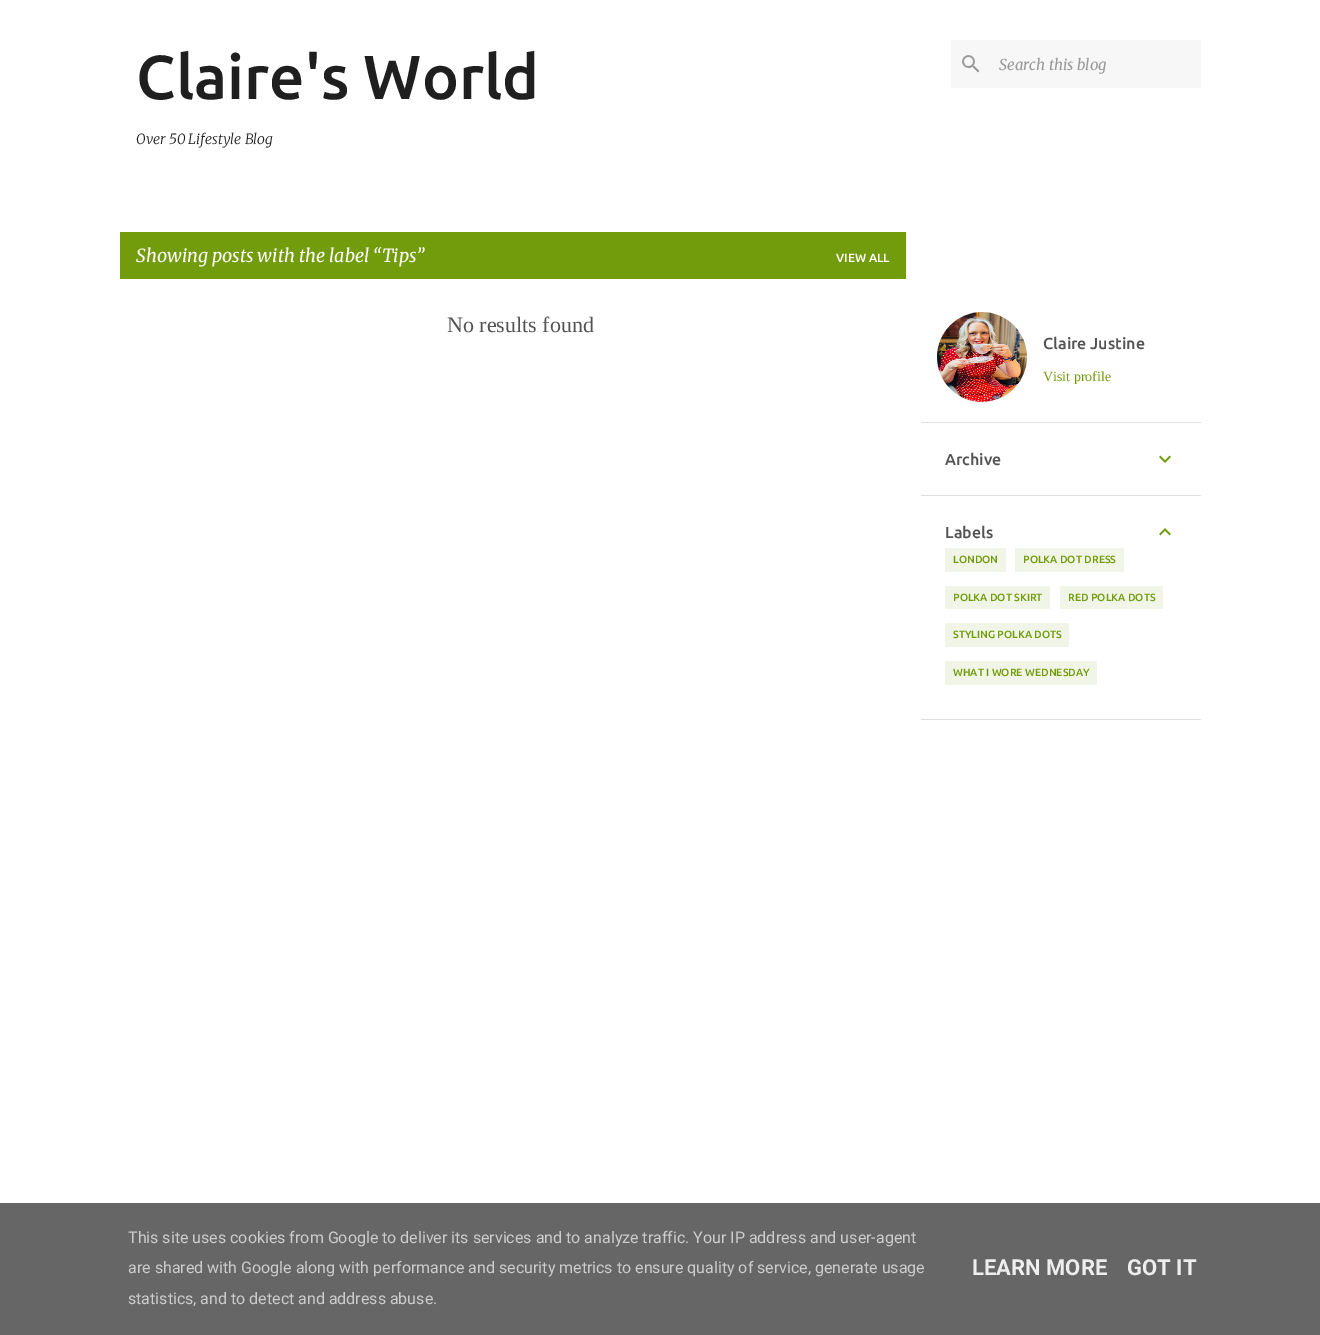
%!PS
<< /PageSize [1320 1335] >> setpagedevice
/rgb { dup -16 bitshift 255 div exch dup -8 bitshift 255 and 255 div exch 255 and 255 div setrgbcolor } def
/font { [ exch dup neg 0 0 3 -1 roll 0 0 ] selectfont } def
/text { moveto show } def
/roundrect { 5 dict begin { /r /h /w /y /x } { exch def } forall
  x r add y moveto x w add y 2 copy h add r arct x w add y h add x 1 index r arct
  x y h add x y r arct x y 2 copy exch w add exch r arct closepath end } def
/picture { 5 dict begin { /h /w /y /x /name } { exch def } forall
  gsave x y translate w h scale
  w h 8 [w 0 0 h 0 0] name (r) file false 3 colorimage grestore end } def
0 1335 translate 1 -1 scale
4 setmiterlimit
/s1 { /Ubuntu-Medium 62 font 16#1F1F1F rgb } def
/s2 { /Merriweather-LightItalic 14 font 16#1F1F1F rgb } def
/s3 { /Merriweather-Italic 15 font 16#999999 rgb } def
/s4 { /Merriweather-Italic 18 font 16#FFFFFF rgb } def
/s5 { /Ubuntu-Medium 12 font 16#FFFFFF rgb } def
/s6 { /LiberationSerif-Regular 22 font 16#535353 rgb } def
/s7 { /Ubuntu-Medium 16 font 16#535353 rgb } def
/s8 { /LiberationSerif-Regular 14 font 16#729C0B rgb } def
/s9 { /Ubuntu-Medium 10.5 font 16#729C0B rgb } def
/s10 { /Roboto-Regular 16 font 16#CCCCCC rgb } def
/s11 { /Roboto-Bold 22 font 16#EEEEEE rgb } def
16#FFFFFF rgb
0 0 1320 1335 rectfill
s1
(Claire's World) 136 99 text
s2
(Over 50 Lifestyle Blog) 136 144 text
16#F7F7F7 rgb
951 40 250 48 rectfill
(pic1.raw) 962 55 18 18 picture
s3
(Search this blog) 999 70 text
16#729C0B rgb
120 232 786 47 rectfill
s4
(Showing posts with the label “Tips”) 136 262 text
s5
(VIEW ALL) 836 262 text
s6
(No results found) 447 332 text
(pic2.raw) 937 312 90 90 picture
s7
(Claire Justine) 1043 349 text
s8
(Visit profile) 1043 381 text
16#E0E0E0 rgb
921 422 280 1 rectfill
s7
(Archive) 945 465 text
(pic3.raw) 1159 455 12 8 picture
16#E0E0E0 rgb
921 495 280 1 rectfill
s7
(Labels) 945 538 text
(pic4.raw) 1159 528 12 8 picture
16#F1F5E7 rgb
945 548 61 24 2 roundrect fill
s9
(LONDON) 953 563 text
16#F1F5E7 rgb
1015 548 109 24 2 roundrect fill
s9
(POLKA DOT DRESS) 1023 563 text
16#F1F5E7 rgb
945 586 105 23 2 roundrect fill
s9
(POLKA DOT SKIRT) 953 601 text
16#F1F5E7 rgb
1060 586 103 23 2 roundrect fill
s9
(RED POLKA DOTS) 1068 601 text
16#F1F5E7 rgb
945 623 124 24 2 roundrect fill
s9
(STYLING POLKA DOTS) 953 638 text
16#F1F5E7 rgb
945 661 152 24 2 roundrect fill
s9
(WHAT I WORE WEDNESDAY) 953 676 text
16#E0E0E0 rgb
921 719 280 1 rectfill
16#666666 rgb
0 1203 1320 132 rectfill
s10
(This site uses cookies from Google to deliver its services and to analyze traffic. Your IP address and user-agent) 128 1243 text
(are shared with Google along with performance and security metrics to ensure quality of service, generate usage) 128 1273 text
(statistics, and to detect and address abuse.) 128 1304 text
s11
(LEARN MORE) 972 1275 text
(GOT IT) 1127 1275 text
showpage
